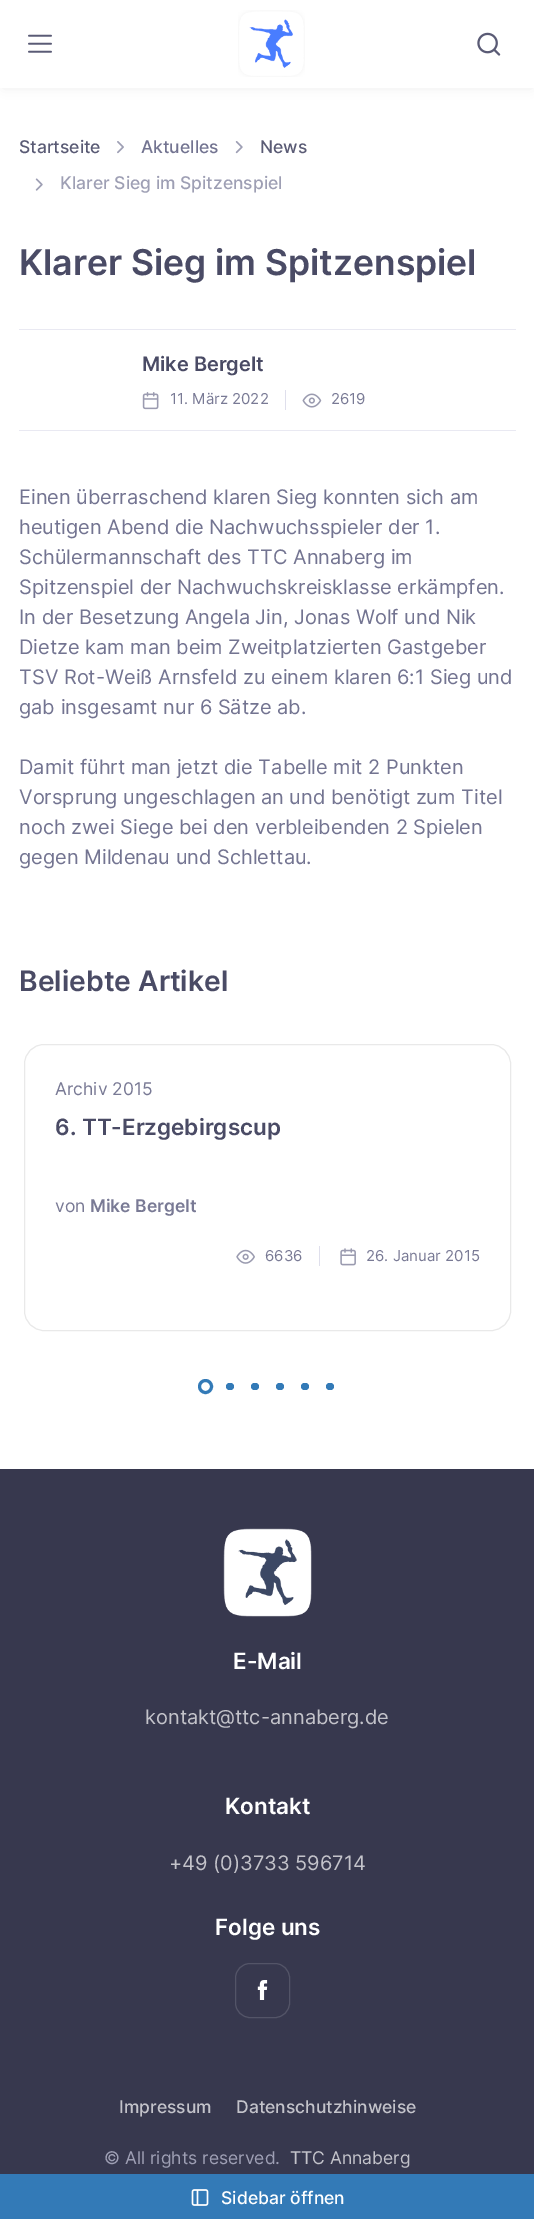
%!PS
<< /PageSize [534 2219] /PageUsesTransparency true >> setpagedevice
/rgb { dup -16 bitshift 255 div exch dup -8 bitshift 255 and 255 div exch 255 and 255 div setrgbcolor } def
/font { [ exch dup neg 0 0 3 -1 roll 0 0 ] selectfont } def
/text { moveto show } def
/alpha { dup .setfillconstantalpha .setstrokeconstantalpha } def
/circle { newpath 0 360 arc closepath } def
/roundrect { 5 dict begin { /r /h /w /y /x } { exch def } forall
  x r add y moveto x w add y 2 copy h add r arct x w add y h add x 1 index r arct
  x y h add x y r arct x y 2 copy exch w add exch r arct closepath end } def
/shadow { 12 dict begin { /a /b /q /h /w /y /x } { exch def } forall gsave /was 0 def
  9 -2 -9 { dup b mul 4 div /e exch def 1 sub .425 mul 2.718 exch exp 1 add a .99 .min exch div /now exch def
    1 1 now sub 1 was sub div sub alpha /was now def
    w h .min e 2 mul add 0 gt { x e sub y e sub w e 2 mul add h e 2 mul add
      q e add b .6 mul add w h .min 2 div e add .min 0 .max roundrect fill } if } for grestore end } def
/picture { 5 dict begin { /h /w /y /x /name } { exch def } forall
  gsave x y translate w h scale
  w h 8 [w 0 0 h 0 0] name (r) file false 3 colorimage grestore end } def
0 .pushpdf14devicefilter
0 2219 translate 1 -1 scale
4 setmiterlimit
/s1 { /Inter-Medium 17.5 font 16#5A5B75 rgb } def
/s2 { /Inter-Medium 17.5 font 16#737491 rgb } def
/s3 { /Inter-Medium 17.5 font 16#9E9FB4 rgb } def
/s4 { /Inter-SemiBold 35.5 font 16#4A4B65 rgb } def
/s5 { /Inter-SemiBold 20 font 16#4A4B65 rgb } def
/s6 { /Inter-Regular 15 font 16#797A95 rgb } def
/s7 { /Inter-Regular 20 font 16#737491 rgb } def
/s8 { /Inter-SemiBold 28.25 font 16#4A4B65 rgb } def
/s9 { /Inter-Regular 17.5 font 16#797A95 rgb } def
/s10 { /Inter-SemiBold 22.5 font 16#4A4B65 rgb } def
/s11 { /Inter-SemiBold 17.5 font 16#797A95 rgb } def
/s12 { /Inter-SemiBold 22.5 font 16#FFFFFF rgb } def
/s13 { /Inter-Regular 20 font 16#C3C3CA rgb } def
/s14 { /Inter-Medium 17.5 font 16#C3C3CA rgb } def
/s15 { /Inter-Regular 17.5 font 16#9E9FB4 rgb } def
/s16 { /Inter-Regular 17.5 font 16#C3C3CA rgb } def
/s17 { /Inter-Medium 17.5 font 16#FFFFFF rgb } def
16#FFFFFF rgb
0 0 534 2219 rectfill
16#000000 rgb
4 6 527 80 0 6 0.1 shadow
16#FFFFFF rgb
0 0 534 88 rectfill
(pic1.raw) 28 34 24 19 picture
(pic2.raw) 238 10 67 67 picture
(pic3.raw) 477 32 24 24 picture
s1
(Startseite) 19 153 text
(pic4.raw) 117 141 7 13 picture
s2
(Aktuelles) 141 153 text
(pic5.raw) 235 141 8 13 picture
s1
(News) 260 153 text
(pic6.raw) 35 178 8 13 picture
s3
(Klarer Sieg im Spitzenspiel) 60 189 text
s4
(Klarer Sieg im Spitzenspiel) 19 275 text
16#E9E9F2 rgb
19 329 497 1 rectfill
19 430 497 1 rectfill
s5
(Mike Bergelt) 142 371 text
(pic7.raw) 142 392 17 18 picture
s6
(11. März 2022) 170 404 text
16#DFDFEC rgb
285 390 1 20 rectfill
(pic8.raw) 302 393 20 15 picture
s6
(2619) 331 404 text
s7
(Einen überraschend klaren Sieg konnten sich am) 19 504 text
(heutigen Abend die Nachwuchsspieler der 1.) 19 534 text
(Schülermannschaft des TTC Annaberg im) 19 564 text
(Spitzenspiel der Nachwuchskreisklasse erkämpfen.) 19 594 text
(In der Besetzung Angela Jin, Jonas Wolf und Nik) 19 624 text
(Dietze kam man beim Zweitplatzierten Gastgeber) 19 654 text
(TSV Rot-Weiß Arnsfeld zu einem klaren 6:1 Sieg und) 19 684 text
(gab insgesamt nur 6 Sätze ab.) 19 714 text
(Damit führt man jetzt die Tabelle mit 2 Punkten) 19 774 text
(Vorsprung ungeschlagen an und benötigt zum Titel) 19 804 text
(noch zwei Siege bei den verbleibenden 2 Spielen) 19 834 text
(gegen Mildenau und Schlettau.) 19 864 text
s8
(Beliebte Artikel) 19 991 text
16#E9E9E9 rgb
24.5 1044.5 486 286 19.5 roundrect stroke
s9
(Archiv 2015) 55 1095 text
s10
(6. TT-Erzgebirgscup) 55 1135 text
s9
(von) 55 1212 text
s11
(Mike Bergelt) 90 1212 text
(pic9.raw) 236 1249 19 15 picture
s6
(6636) 265 1261 text
16#DFDFEC rgb
319 1246 1 20 rectfill
(pic10.raw) 340 1248 16 18 picture
s6
(26. Januar 2015) 366 1261 text
16#337AB7 rgb
3 setlinewidth
205.5 1386.5 6 circle stroke
226 1383 8 7 3.5 roundrect fill
251 1383 8 7 3.5 roundrect fill
276 1383 8 7 3.5 roundrect fill
301 1383 8 7 3.5 roundrect fill
326 1383 8 7 3.5 roundrect fill
16#37384E rgb
0 1469 534 705 rectfill
(pic11.raw) 223 1528 89 89 picture
s12
(E-Mail) 233 1669 text
s13
(kontakt@ttc-annaberg.de) 145 1724 text
s12
(Kontakt) 225 1814 text
s13
(+49 \(0\)3733 596714) 169 1870 text
s12
(Folge uns) 215 1935 text
16#535467 rgb
1 setlinewidth
235.5 1963.5 54 54 14.5 roundrect stroke
(pic12.raw) 257 1980 11 20 picture
s14
(Impressum) 119 2113 text
(Datenschutzhinweise) 236 2113 text
s15
(© All rights reserved.) 104 2164 text
s16
(TTC Annaberg) 290 2164 text
16#337AB7 rgb
0 2174 534 45 rectfill
(pic13.raw) 191 2189 18 17 picture
s17
(Sidebar öffnen) 221 2204 text
.poppdf14devicefilter showpage
